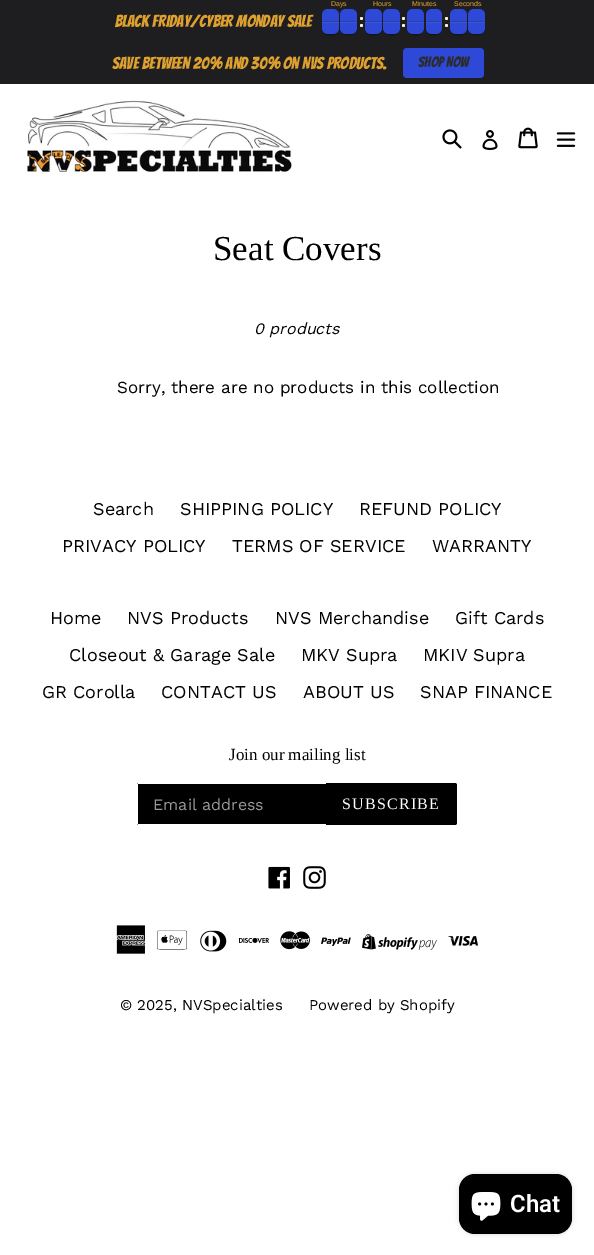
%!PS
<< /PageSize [594 1255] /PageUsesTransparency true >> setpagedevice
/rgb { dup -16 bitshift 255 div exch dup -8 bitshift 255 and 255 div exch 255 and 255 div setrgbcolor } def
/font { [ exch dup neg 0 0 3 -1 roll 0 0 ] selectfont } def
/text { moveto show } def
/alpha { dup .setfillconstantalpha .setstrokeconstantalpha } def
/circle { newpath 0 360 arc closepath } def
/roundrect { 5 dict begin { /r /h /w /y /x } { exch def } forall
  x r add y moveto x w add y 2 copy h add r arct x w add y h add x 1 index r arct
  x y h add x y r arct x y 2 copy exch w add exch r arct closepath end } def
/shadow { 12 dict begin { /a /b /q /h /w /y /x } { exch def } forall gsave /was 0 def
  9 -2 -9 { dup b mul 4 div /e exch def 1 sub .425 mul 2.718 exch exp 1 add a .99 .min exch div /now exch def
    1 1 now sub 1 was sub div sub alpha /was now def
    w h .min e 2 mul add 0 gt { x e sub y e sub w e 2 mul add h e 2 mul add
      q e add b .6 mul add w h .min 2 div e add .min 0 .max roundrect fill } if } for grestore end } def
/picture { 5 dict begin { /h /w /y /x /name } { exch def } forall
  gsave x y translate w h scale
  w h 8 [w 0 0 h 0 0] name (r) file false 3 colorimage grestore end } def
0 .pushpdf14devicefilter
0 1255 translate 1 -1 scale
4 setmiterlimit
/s1 { /LiberationSans-Regular 7 font 16#DEA02F rgb } def
/s2 { /Bangers-Regular 16.75 font 16#DEA02F rgb } def
/s3 { /Bangers-Regular 14.5 font 16#2A2C2B rgb } def
/s4 { /LiberationSerif-Regular 35 font 16#000000 rgb } def
/s5 { /WorkSans-Italic 16 font 16#000000 rgb } def
/s6 { /WorkSans-Regular 17 font 16#000000 rgb } def
/s7 { /WorkSans-Regular 18 font 16#000000 rgb } def
/s8 { /LiberationSerif-Regular 17 font 16#000000 rgb } def
/s9 { /WorkSans-Regular 16 font 16#999999 rgb } def
/s10 { /WorkSans-Regular 15 font 16#000000 rgb } def
/s11 { /Roboto-SemiBold 24 font 16#FFFFFF rgb } def
16#FFFFFF rgb
0 0 594 1255 rectfill
16#1E1E20 rgb
0 0 594 84 rectfill
s1
(Days) 331 6 text
16#000000 rgb
322 23 17 12 6 0.5 0.4 shadow
340 23 17 12 6 0.5 0.4 shadow
16#2E48D8 rgb
328 9 moveto 333 9 lineto 336.5 9 339 11.5 339 15 curveto 339 22 lineto 322 22 lineto 322 15 lineto 322 11.5 324.5 9 328 9 curveto closepath fill
0.4 alpha
16#333333 rgb
322 21 17 1 rectfill
1 alpha
16#2E48D8 rgb
322 22 moveto 339 22 lineto 339 28 lineto 339 31.5 336.5 34 333 34 curveto 328 34 lineto 324.5 34 322 31.5 322 28 curveto closepath fill
0.1 alpha
16#CCCCCC rgb
322 22 17 1 rectfill
1 alpha
16#2E48D8 rgb
346 9 moveto 351 9 lineto 354.5 9 357 11.5 357 15 curveto 357 22 lineto 340 22 lineto 340 15 lineto 340 11.5 342.5 9 346 9 curveto closepath fill
0.4 alpha
16#333333 rgb
340 21 17 1 rectfill
1 alpha
16#2E48D8 rgb
340 22 moveto 357 22 lineto 357 28 lineto 357 31.5 354.5 34 351 34 curveto 346 34 lineto 342.5 34 340 31.5 340 28 curveto closepath fill
0.1 alpha
16#CCCCCC rgb
340 22 17 1 rectfill
1 alpha
s1
(Hours) 373 6 text
16#FFF3D9 rgb
361.5 25.5 1.5 circle fill
16#000000 rgb
365 23 17 12 6 0.5 0.4 shadow
16#FFF3D9 rgb
403.5 25.5 1.5 circle fill
16#000000 rgb
383 23 17 12 6 0.5 0.4 shadow
16#2E48D8 rgb
371 9 moveto 376 9 lineto 379.5 9 382 11.5 382 15 curveto 382 22 lineto 365 22 lineto 365 15 lineto 365 11.5 367.5 9 371 9 curveto closepath fill
0.4 alpha
16#333333 rgb
365 21 17 1 rectfill
1 alpha
16#2E48D8 rgb
365 22 moveto 382 22 lineto 382 28 lineto 382 31.5 379.5 34 376 34 curveto 371 34 lineto 367.5 34 365 31.5 365 28 curveto closepath fill
0.1 alpha
16#CCCCCC rgb
365 22 17 1 rectfill
1 alpha
16#2E48D8 rgb
389 9 moveto 394 9 lineto 397.5 9 400 11.5 400 15 curveto 400 22 lineto 383 22 lineto 383 15 lineto 383 11.5 385.5 9 389 9 curveto closepath fill
0.4 alpha
16#333333 rgb
383 21 17 1 rectfill
1 alpha
16#2E48D8 rgb
383 22 moveto 400 22 lineto 400 28 lineto 400 31.5 397.5 34 394 34 curveto 389 34 lineto 385.5 34 383 31.5 383 28 curveto closepath fill
0.1 alpha
16#CCCCCC rgb
383 22 17 1 rectfill
1 alpha
s1
(Minutes) 412 6 text
16#000000 rgb
407 23 17 12 6 0.5 0.4 shadow
426 23 16 12 6 0.5 0.4 shadow
16#2E48D8 rgb
413 9 moveto 418 9 lineto 421.5 9 424 11.5 424 15 curveto 424 22 lineto 407 22 lineto 407 15 lineto 407 11.5 409.5 9 413 9 curveto closepath fill
0.4 alpha
16#333333 rgb
407 21 17 1 rectfill
1 alpha
16#2E48D8 rgb
407 22 moveto 424 22 lineto 424 28 lineto 424 31.5 421.5 34 418 34 curveto 413 34 lineto 409.5 34 407 31.5 407 28 curveto closepath fill
0.1 alpha
16#CCCCCC rgb
407 22 17 1 rectfill
1 alpha
16#2E48D8 rgb
432 9 moveto 436 9 lineto 439.5 9 442 11.5 442 15 curveto 442 22 lineto 426 22 lineto 426 15 lineto 426 11.5 428.5 9 432 9 curveto closepath fill
0.4 alpha
16#333333 rgb
426 21 16 1 rectfill
1 alpha
16#2E48D8 rgb
426 22 moveto 442 22 lineto 442 28 lineto 442 31.5 439.5 34 436 34 curveto 432 34 lineto 428.5 34 426 31.5 426 28 curveto closepath fill
0.1 alpha
16#CCCCCC rgb
426 22 16 1 rectfill
1 alpha
s1
(Seconds) 454 6 text
16#FFF3D9 rgb
446.5 25.5 1.5 circle fill
16#000000 rgb
450 23 17 12 6 0.5 0.4 shadow
468 23 17 12 6 0.5 0.4 shadow
16#2E48D8 rgb
456 9 moveto 461 9 lineto 464.5 9 467 11.5 467 15 curveto 467 22 lineto 450 22 lineto 450 15 lineto 450 11.5 452.5 9 456 9 curveto closepath fill
0.4 alpha
16#333333 rgb
450 21 17 1 rectfill
1 alpha
16#2E48D8 rgb
450 22 moveto 467 22 lineto 467 28 lineto 467 31.5 464.5 34 461 34 curveto 456 34 lineto 452.5 34 450 31.5 450 28 curveto closepath fill
0.1 alpha
16#CCCCCC rgb
450 22 17 1 rectfill
1 alpha
16#2E48D8 rgb
474 9 moveto 479 9 lineto 482.5 9 485 11.5 485 15 curveto 485 22 lineto 468 22 lineto 468 15 lineto 468 11.5 470.5 9 474 9 curveto closepath fill
0.4 alpha
16#333333 rgb
468 21 17 1 rectfill
1 alpha
16#2E48D8 rgb
468 22 moveto 485 22 lineto 485 28 lineto 485 31.5 482.5 34 479 34 curveto 474 34 lineto 470.5 34 468 31.5 468 28 curveto closepath fill
0.1 alpha
16#CCCCCC rgb
468 22 17 1 rectfill
1 alpha
16#FFF3D9 rgb
361.5 18.5 1.5 circle fill
403.5 18.5 1.5 circle fill
446.5 18.5 1.5 circle fill
s2
(BLACK FRIDAY/CYBER MONDAY SALE) 115 27 text
(Save between 20% and 30% on NVS products.) 112 69 text
16#2E48D8 rgb
403 48 81 30 4 roundrect fill
s3
(Shop Now) 418 67 text
(pic1.raw) 27 100 265 73 picture
(pic2.raw) 442 129 20 20 picture
(pic3.raw) 482 130 16 20 picture
(pic4.raw) 518 127 20 22 picture
(pic5.raw) 556 132 20 15 picture
s4
(Seat Covers) 213 260 text
s5
(0 products) 254 334 text
s6
(Sorry, there are no products in this collection) 117 393 text
s7
(Search) 93 515 text
(SHIPPING POLICY) 180 515 text
(REFUND POLICY) 359 515 text
(PRIVACY POLICY) 62 552 text
(TERMS OF SERVICE) 232 552 text
(WARRANTY) 432 552 text
(Home) 50 624 text
(NVS Products) 127 624 text
(NVS Merchandise) 275 624 text
(Gift Cards) 455 624 text
(Closeout & Garage Sale) 69 661 text
(MKV Supra) 301 661 text
(MKIV Supra) 423 661 text
(GR Corolla) 42 698 text
(CONTACT US) 161 698 text
(ABOUT US) 303 698 text
(SNAP FINANCE) 420 698 text
s8
(Join our mailing list) 229 760 text
139 783 moveto 326 783 lineto 326 825 lineto 139 825 lineto 138 825 137 824 137 823 curveto 137 785 lineto 137 784 138 783 139 783 curveto closepath fill
16#FFFFFF rgb
138 783 188 1 rectfill
138 824 188 1 rectfill
137 784 1 40 rectfill
s9
(Email address) 153 810 text
16#000000 rgb
326 783 moveto 455 783 lineto 456 783 457 784 457 785 curveto 457 823 lineto 457 824 456 825 455 825 curveto 326 825 lineto closepath fill
/LiberationSerif-Regular 16 font
16#FFFFFF rgb
342 809 moveto 1.25 0 (SUBSCRIBE) ashow
(pic6.raw) 268 866 22 23 picture
(pic7.raw) 303 866 23 23 picture
(pic8.raw) 116 925 30 29 picture
(pic9.raw) 157 930 30 20 picture
(pic10.raw) 200 930 27 22 picture
(pic11.raw) 239 937 30 6 picture
(pic12.raw) 280 931 30 19 picture
(pic13.raw) 321 937 30 9 picture
(pic14.raw) 362 934 75 16 picture
(pic15.raw) 448 936 30 10 picture
s10
(© 2025, NVSpecialties) 120 1010 text
(Powered by Shopify) 309 1010 text
459 1174 113 60 16 2.5 0.15 shadow
459 1174 113 60 16 roundrect fill
(pic16.raw) 471 1192 30 29 picture
s11
(Chat) 510 1212 text
.poppdf14devicefilter showpage
